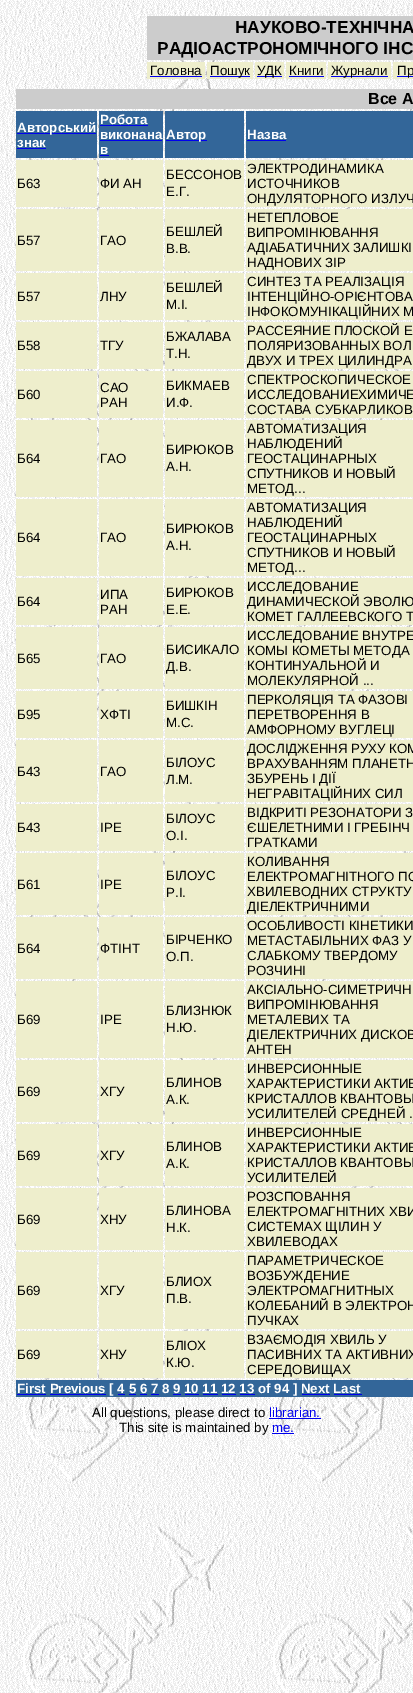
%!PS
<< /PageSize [413 1693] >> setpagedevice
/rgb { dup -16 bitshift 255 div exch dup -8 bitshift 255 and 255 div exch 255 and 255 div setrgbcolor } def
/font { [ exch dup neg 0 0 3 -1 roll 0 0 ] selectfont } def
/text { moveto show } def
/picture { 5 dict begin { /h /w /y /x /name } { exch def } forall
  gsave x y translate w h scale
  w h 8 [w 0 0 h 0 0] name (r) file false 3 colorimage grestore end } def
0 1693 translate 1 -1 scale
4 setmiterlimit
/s1 { /LiberationSans-Bold 17.3 font 16#000000 rgb } def
/s2 { /LiberationSans-Regular 13.3 font 16#000000 rgb } def
/s3 { /LiberationSans-Bold 16 font 16#000000 rgb } def
/s4 { /LiberationSans-Bold 13.3 font 16#FFFFFF rgb } def
/s5 { /LiberationSans-Regular 13.3 font 16#0000EE rgb } def
16#FFFFFF rgb
0 0 413 1693 rectfill
(pic1.raw) 0 0 413 1693 picture
16#CCCCCC rgb
147 16 266 44 rectfill
s1
(НАУКОВО-ТЕХНІЧНА) 235 33 text
(РАДІОАСТРОНОМІЧНОГО ІНС) 157 54 text
16#EEEECC rgb
147 62 58 17 rectfill
s2
(Головна) 150 75 text
16#0000EE rgb
150 76 52 1 rectfill
16#EEEECC rgb
207 62 46 17 rectfill
16#0000EE rgb
210 76 40 1 rectfill
s2
(Пошук) 210 75 text
16#EEEECC rgb
255 62 29 17 rectfill
16#0000EE rgb
257 76 25 1 rectfill
s2
(УДК) 257 75 text
16#EEEECC rgb
286 62 40 17 rectfill
s2
(Книги) 289 75 text
16#0000EE rgb
289 76 35 1 rectfill
16#EEEECC rgb
328 62 63 17 rectfill
16#0000EE rgb
331 76 57 1 rectfill
s2
(Журнали) 331 75 text
16#EEEECC rgb
393 62 20 17 rectfill
16#0000EE rgb
397 76 16 1 rectfill
s2
(Пр) 397 75 text
16#CCCCCC rgb
16 89 397 20 rectfill
s3
(Все А) 368 104 text
16#336699 rgb
16 111 81 47 rectfill
16#0000EE rgb
17 133 79 1 rectfill
s4
(Авторський) 17 132 text
(знак) 17 147 text
16#0000EE rgb
17 148 29 1 rectfill
16#336699 rgb
99 111 64 47 rectfill
s4
(Робота) 100 124 text
16#0000EE rgb
100 125 48 1 rectfill
s4
(виконана) 100 139 text
16#0000EE rgb
100 140 62 1 rectfill
s4
(в) 100 154 text
16#0000EE rgb
100 155 9 1 rectfill
16#336699 rgb
165 111 79 47 rectfill
16#0000EE rgb
166 140 41 1 rectfill
s4
(Автор) 166 139 text
16#336699 rgb
246 111 167 47 rectfill
s4
(Назва) 247 139 text
16#0000EE rgb
247 140 39 1 rectfill
16#EEEECC rgb
16 160 81 47 rectfill
s2
(Б63) 17 188 text
16#EEEECC rgb
99 160 64 47 rectfill
s2
(ФИ АН) 100 188 text
16#EEEECC rgb
165 160 79 47 rectfill
s2
(БЕССОНОВ) 166 179 text
(Е.Г.) 166 196 text
16#EEEECC rgb
246 160 167 47 rectfill
s2
(ЭЛЕКТРОДИНАМИКА) 247 173 text
(ИСТОЧНИКОВ) 247 188 text
(ОНДУЛЯТОРНОГО ИЗЛУЧ) 247 203 text
16#EEEECC rgb
16 209 81 62 rectfill
s2
(Б57) 17 245 text
16#EEEECC rgb
99 209 64 62 rectfill
s2
(ГАО) 100 245 text
16#EEEECC rgb
165 209 79 62 rectfill
s2
(БЕШЛЕЙ) 166 236 text
(В.В.) 166 253 text
16#EEEECC rgb
246 209 167 62 rectfill
s2
(НЕТЕПЛОВОЕ) 247 222 text
(ВИПРОМІНЮВАННЯ) 247 237 text
(АДІАБАТИЧНИХ ЗАЛИШКІ) 247 252 text
(НАДНОВИХ ЗІР) 247 267 text
16#EEEECC rgb
16 273 81 47 rectfill
s2
(Б57) 17 301 text
16#EEEECC rgb
99 273 64 47 rectfill
s2
(ЛНУ) 100 301 text
16#EEEECC rgb
165 273 79 47 rectfill
s2
(БЕШЛЕЙ) 166 292 text
(М.І.) 166 309 text
16#EEEECC rgb
246 273 167 47 rectfill
s2
(СИНТЕЗ ТА РЕАЛІЗАЦІЯ) 247 286 text
(ІНТЕНЦІЙНО-ОРІЄНТОВА) 247 301 text
(ІНФОКОМУНІКАЦІЙНИХ М) 247 316 text
16#EEEECC rgb
16 322 81 47 rectfill
s2
(Б58) 17 350 text
16#EEEECC rgb
99 322 64 47 rectfill
s2
(ТГУ) 100 350 text
16#EEEECC rgb
165 322 79 47 rectfill
s2
(БЖАЛАВА) 166 341 text
(Т.Н.) 166 358 text
16#EEEECC rgb
246 322 167 47 rectfill
s2
(РАССЕЯНИЕ ПЛОСКОЙ Е) 247 335 text
(ПОЛЯРИЗОВАННЫХ ВОЛ) 247 350 text
(ДВУХ И ТРЕХ ЦИЛИНДРА) 247 365 text
16#EEEECC rgb
16 371 81 47 rectfill
s2
(Б60) 17 399 text
16#EEEECC rgb
99 371 64 47 rectfill
s2
(САО) 100 392 text
(РАН) 100 407 text
16#EEEECC rgb
165 371 79 47 rectfill
s2
(БИКМАЕВ) 166 390 text
(И.Ф.) 166 407 text
16#EEEECC rgb
246 371 167 47 rectfill
s2
(СПЕКТРОСКОПИЧЕСКОЕ) 247 384 text
(ИССЛЕДОВАНИЕХИМИЧЕ) 247 399 text
(СОСТАВА СУБКАРЛИКОВ) 247 414 text
16#EEEECC rgb
16 420 81 77 rectfill
s2
(Б64) 17 463 text
16#EEEECC rgb
99 420 64 77 rectfill
s2
(ГАО) 100 463 text
16#EEEECC rgb
165 420 79 77 rectfill
s2
(БИРЮКОВ) 166 454 text
(А.Н.) 166 471 text
16#EEEECC rgb
246 420 167 77 rectfill
s2
(АВТОМАТИЗАЦИЯ) 247 433 text
(НАБЛЮДЕНИЙ) 247 448 text
(ГЕОСТАЦИНАРНЫХ) 247 463 text
(СПУТНИКОВ И НОВЫЙ) 247 478 text
(МЕТОД...) 247 493 text
16#EEEECC rgb
16 499 81 77 rectfill
s2
(Б64) 17 542 text
16#EEEECC rgb
99 499 64 77 rectfill
s2
(ГАО) 100 542 text
16#EEEECC rgb
165 499 79 77 rectfill
s2
(БИРЮКОВ) 166 533 text
(А.Н.) 166 550 text
16#EEEECC rgb
246 499 167 77 rectfill
s2
(АВТОМАТИЗАЦИЯ) 247 512 text
(НАБЛЮДЕНИЙ) 247 527 text
(ГЕОСТАЦИНАРНЫХ) 247 542 text
(СПУТНИКОВ И НОВЫЙ) 247 557 text
(МЕТОД...) 247 572 text
16#EEEECC rgb
16 578 81 47 rectfill
s2
(Б64) 17 606 text
16#EEEECC rgb
99 578 64 47 rectfill
s2
(ИПА) 100 599 text
(РАН) 100 614 text
16#EEEECC rgb
165 578 79 47 rectfill
s2
(БИРЮКОВ) 166 597 text
(Е.Е.) 166 614 text
16#EEEECC rgb
246 578 167 47 rectfill
s2
(ИССЛЕДОВАНИЕ) 247 591 text
(ДИНАМИЧЕСКОЙ ЭВОЛЮ) 247 606 text
(КОМЕТ ГАЛЛЕЕВСКОГО Т) 247 621 text
16#EEEECC rgb
16 627 81 62 rectfill
s2
(Б65) 17 663 text
16#EEEECC rgb
99 627 64 62 rectfill
s2
(ГАО) 100 663 text
16#EEEECC rgb
165 627 79 62 rectfill
s2
(БИСИКАЛО) 166 654 text
(Д.В.) 166 671 text
16#EEEECC rgb
246 627 167 62 rectfill
s2
(ИССЛЕДОВАНИЕ ВНУТРЕ) 247 640 text
(КОМЫ КОМЕТЫ МЕТОДА) 247 655 text
(КОНТИНУАЛЬНОЙ И) 247 670 text
(МОЛЕКУЛЯРНОЙ ...) 247 685 text
16#EEEECC rgb
16 691 81 47 rectfill
s2
(Б95) 17 719 text
16#EEEECC rgb
99 691 64 47 rectfill
s2
(ХФТІ) 100 719 text
16#EEEECC rgb
165 691 79 47 rectfill
s2
(БИШКІН) 166 710 text
(М.С.) 166 727 text
16#EEEECC rgb
246 691 167 47 rectfill
s2
(ПЕРКОЛЯЦІЯ ТА ФАЗОВІ) 247 704 text
(ПЕРЕТВОРЕННЯ В) 247 719 text
(АМФОРНОМУ ВУГЛЕЦІ) 247 734 text
16#EEEECC rgb
16 740 81 62 rectfill
s2
(Б43) 17 776 text
16#EEEECC rgb
99 740 64 62 rectfill
s2
(ГАО) 100 776 text
16#EEEECC rgb
165 740 79 62 rectfill
s2
(БІЛОУС) 166 767 text
(Л.М.) 166 784 text
16#EEEECC rgb
246 740 167 62 rectfill
s2
(ДОСЛІДЖЕННЯ РУХУ КОМ) 247 753 text
(ВРАХУВАННЯМ ПЛАНЕТН) 247 768 text
(ЗБУРЕНЬ І ДІЇ) 247 783 text
(НЕГРАВІТАЦІЙНИХ СИЛ) 247 798 text
16#EEEECC rgb
16 804 81 47 rectfill
s2
(Б43) 17 832 text
16#EEEECC rgb
99 804 64 47 rectfill
s2
(ІРЕ) 100 832 text
16#EEEECC rgb
165 804 79 47 rectfill
s2
(БІЛОУС) 166 823 text
(О.І.) 166 840 text
16#EEEECC rgb
246 804 167 47 rectfill
s2
(ВІДКРИТІ РЕЗОНАТОРИ З) 247 817 text
(ЄШЕЛЕТНИМИ І ГРЕБІНЧ) 247 832 text
(ГРАТКАМИ) 247 847 text
16#EEEECC rgb
16 853 81 62 rectfill
s2
(Б61) 17 889 text
16#EEEECC rgb
99 853 64 62 rectfill
s2
(ІРЕ) 100 889 text
16#EEEECC rgb
165 853 79 62 rectfill
s2
(БІЛОУС) 166 880 text
(Р.І.) 166 897 text
16#EEEECC rgb
246 853 167 62 rectfill
s2
(КОЛИВАННЯ) 247 866 text
(ЕЛЕКТРОМАГНІТНОГО ПО) 247 881 text
(ХВИЛЕВОДНИХ СТРУКТУ) 247 896 text
(ДІЕЛЕКТРИЧНИМИ) 247 911 text
16#EEEECC rgb
16 917 81 62 rectfill
s2
(Б64) 17 953 text
16#EEEECC rgb
99 917 64 62 rectfill
s2
(ФТІНТ) 100 953 text
16#EEEECC rgb
165 917 79 62 rectfill
s2
(БІРЧЕНКО) 166 944 text
(О.П.) 166 961 text
16#EEEECC rgb
246 917 167 62 rectfill
s2
(ОСОБЛИВОСТІ КІНЕТИКИ) 247 930 text
(МЕТАСТАБІЛЬНИХ ФАЗ У) 247 945 text
(СЛАБКОМУ ТВЕРДОМУ) 247 960 text
(РОЗЧИНІ) 247 975 text
16#EEEECC rgb
16 981 81 77 rectfill
s2
(Б69) 17 1024 text
16#EEEECC rgb
99 981 64 77 rectfill
s2
(ІРЕ) 100 1024 text
16#EEEECC rgb
165 981 79 77 rectfill
s2
(БЛИЗНЮК) 166 1015 text
(Н.Ю.) 166 1032 text
16#EEEECC rgb
246 981 167 77 rectfill
s2
(АКСІАЛЬНО-СИМЕТРИЧН) 247 994 text
(ВИПРОМІНЮВАННЯ) 247 1009 text
(МЕТАЛЕВИХ ТА) 247 1024 text
(ДІЕЛЕКТРИЧНИХ ДИСКОВ) 247 1039 text
(АНТЕН) 247 1054 text
16#EEEECC rgb
16 1060 81 62 rectfill
s2
(Б69) 17 1096 text
16#EEEECC rgb
99 1060 64 62 rectfill
s2
(ХГУ) 100 1096 text
16#EEEECC rgb
165 1060 79 62 rectfill
s2
(БЛИНОВ) 166 1087 text
(А.К.) 166 1104 text
16#EEEECC rgb
246 1060 167 62 rectfill
s2
(ИНВЕРСИОННЫЕ) 247 1073 text
(ХАРАКТЕРИСТИКИ АКТИВ) 247 1088 text
(КРИСТАЛЛОВ КВАНТОВЫ) 247 1103 text
(УСИЛИТЕЛЕЙ СРЕДНЕЙ .) 247 1118 text
16#EEEECC rgb
16 1124 81 62 rectfill
s2
(Б69) 17 1160 text
16#EEEECC rgb
99 1124 64 62 rectfill
s2
(ХГУ) 100 1160 text
16#EEEECC rgb
165 1124 79 62 rectfill
s2
(БЛИНОВ) 166 1151 text
(А.К.) 166 1168 text
16#EEEECC rgb
246 1124 167 62 rectfill
s2
(ИНВЕРСИОННЫЕ) 247 1137 text
(ХАРАКТЕРИСТИКИ АКТИВ) 247 1152 text
(КРИСТАЛЛОВ КВАНТОВЫ) 247 1167 text
(УСИЛИТЕЛЕЙ) 247 1182 text
16#EEEECC rgb
16 1188 81 62 rectfill
s2
(Б69) 17 1224 text
16#EEEECC rgb
99 1188 64 62 rectfill
s2
(ХНУ) 100 1224 text
16#EEEECC rgb
165 1188 79 62 rectfill
s2
(БЛИНОВА) 166 1215 text
(Н.К.) 166 1232 text
16#EEEECC rgb
246 1188 167 62 rectfill
s2
(РОЗСПОВАННЯ) 247 1201 text
(ЕЛЕКТРОМАГНІТНИХ ХВИ) 247 1216 text
(СИСТЕМАХ ЩІЛИН У) 247 1231 text
(ХВИЛЕВОДАХ) 247 1246 text
16#EEEECC rgb
16 1252 81 77 rectfill
s2
(Б69) 17 1295 text
16#EEEECC rgb
99 1252 64 77 rectfill
s2
(ХГУ) 100 1295 text
16#EEEECC rgb
165 1252 79 77 rectfill
s2
(БЛИОХ) 166 1286 text
(П.В.) 166 1303 text
16#EEEECC rgb
246 1252 167 77 rectfill
s2
(ПАРАМЕТРИЧЕСКОЕ) 247 1265 text
(ВОЗБУЖДЕНИЕ) 247 1280 text
(ЭЛЕКТРОМАГНИТНЫХ) 247 1295 text
(КОЛЕБАНИЙ В ЭЛЕКТРОН) 247 1310 text
(ПУЧКАХ) 247 1325 text
16#EEEECC rgb
16 1331 81 47 rectfill
s2
(Б69) 17 1359 text
16#EEEECC rgb
99 1331 64 47 rectfill
s2
(ХНУ) 100 1359 text
16#EEEECC rgb
165 1331 79 47 rectfill
s2
(БЛІОХ) 166 1350 text
(К.Ю.) 166 1367 text
16#EEEECC rgb
246 1331 167 47 rectfill
s2
(ВЗАЄМОДІЯ ХВИЛЬ У) 247 1344 text
(ПАСИВНИХ ТА АКТИВНИХ) 247 1359 text
(СЕРЕДОВИЩАХ) 247 1374 text
16#336699 rgb
16 1380 397 17 rectfill
16#0000EE rgb
17 1394 29 1 rectfill
s4
(First Previous [ 4 5 6 7 8 9 10 11 12 13 of 94 ] Next Last) 17 1393 text
16#0000EE rgb
50 1394 56 1 rectfill
118 1394 7 1 rectfill
129 1394 7 1 rectfill
140 1394 7 1 rectfill
151 1394 8 1 rectfill
173 1394 8 1 rectfill
185 1394 14 1 rectfill
203 1394 15 1 rectfill
222 1394 14 1 rectfill
240 1394 15 1 rectfill
302 1394 28 1 rectfill
334 1394 28 1 rectfill
s2
(All questions, please direct to) 92 1417 text
s5
(librarian.) 269 1417 text
269 1418 52 1 rectfill
s2
(This site is maintained by) 119 1432 text
s5
(me.) 272 1432 text
272 1433 22 1 rectfill
showpage
